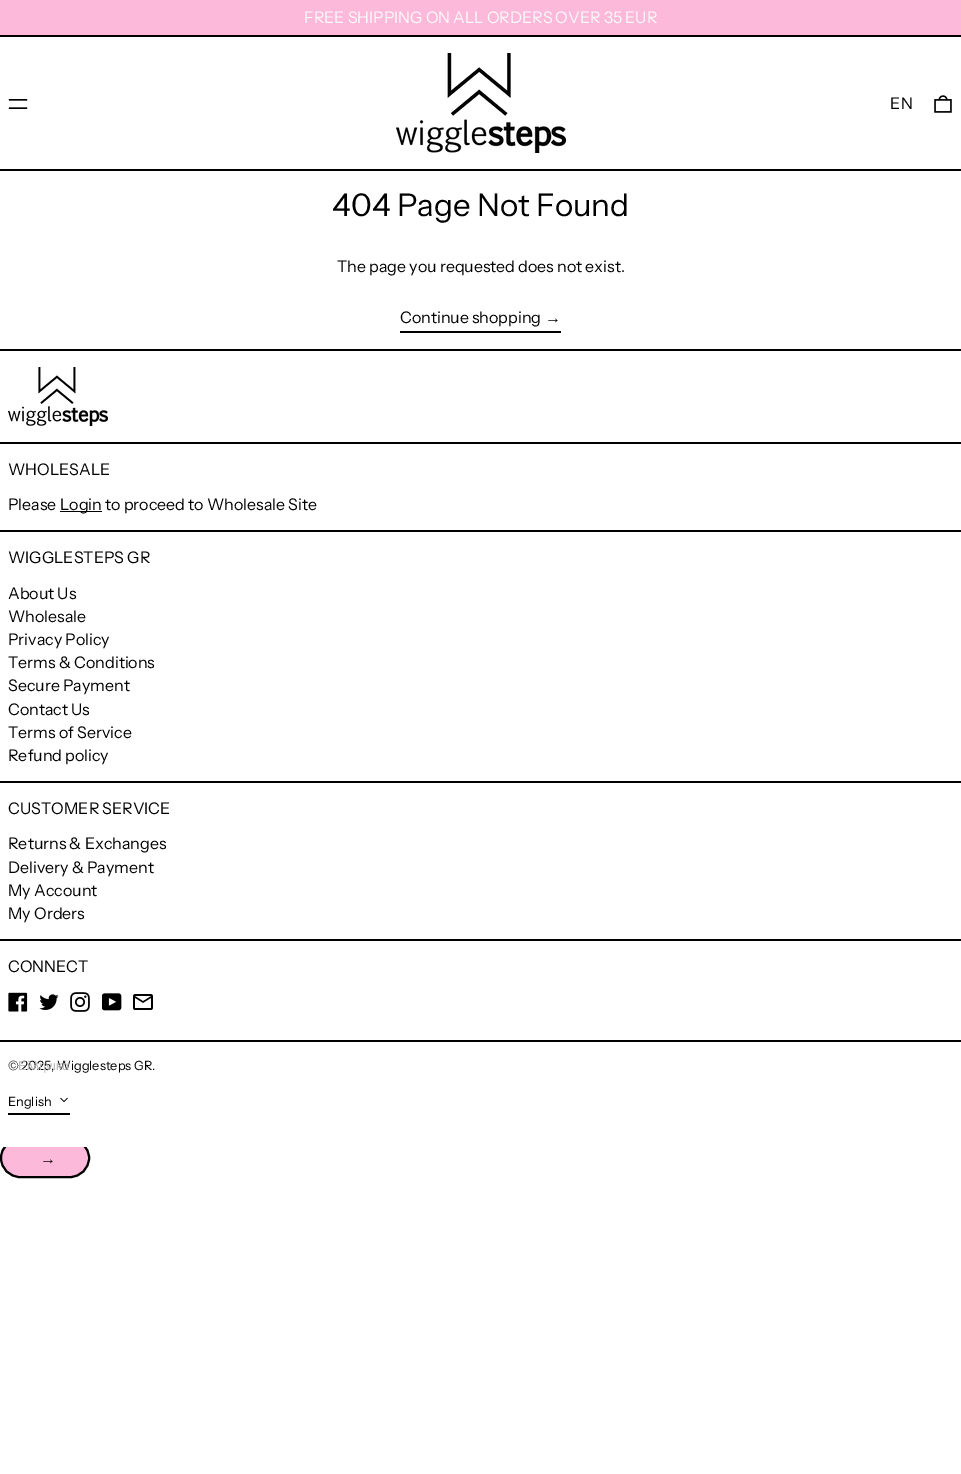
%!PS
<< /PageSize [961 1474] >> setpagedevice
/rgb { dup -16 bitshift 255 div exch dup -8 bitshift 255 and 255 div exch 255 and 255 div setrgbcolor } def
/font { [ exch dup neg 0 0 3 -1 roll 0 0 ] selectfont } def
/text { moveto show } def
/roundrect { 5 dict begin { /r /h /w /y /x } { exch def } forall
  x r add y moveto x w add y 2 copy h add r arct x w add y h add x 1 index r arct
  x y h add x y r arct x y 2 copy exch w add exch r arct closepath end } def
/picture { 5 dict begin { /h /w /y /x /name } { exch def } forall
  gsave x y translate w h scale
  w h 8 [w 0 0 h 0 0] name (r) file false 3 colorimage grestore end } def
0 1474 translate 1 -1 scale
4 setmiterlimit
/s1 { /InstrumentSans-Regular 16 font 16#FAFAFA rgb } def
/s2 { /InstrumentSans-Regular 31.25 font 16#000000 rgb } def
/s3 { /InstrumentSans-Regular 16 font 16#000000 rgb } def
/s4 { /LiberationSans-Regular 16 font 16#000000 rgb } def
/s5 { /InstrumentSans-Regular 12.75 font 16#000000 rgb } def
/s6 { /LiberationSans-Regular 12.75 font 16#BABABA rgb } def
16#FFFFFF rgb
0 0 961 1474 rectfill
16#FDB9DA rgb
0 0 961 35 rectfill
16#000000 rgb
0 35 961 2 rectfill
s1
(FREE SHIPPING ON ALL ORDERS OVER 35 EUR) 304 23 text
16#000000 rgb
0 169 961 2 rectfill
(pic1.raw) 8 99 20 10 picture
(pic2.raw) 396 53 170 100 picture
890 109 moveto 1 0 (EN) ashow
(pic3.raw) 934 95 18 18 picture
s2
(404 Page Not Found) 332 216 text
s3
(The page you requested does not exist.) 337 272 text
400 331 161 2 rectfill
(Continue shopping) 400 323 text
s4
(→) 545 323 text
16#FDB9DA rgb
1 1139 88 38 19 roundrect gsave fill grestore
16#000000 rgb
2 setlinewidth
stroke
16#FFFFFF rgb
3 1138 84 9 rectfill
16#000000 rgb
0 349 961 2 rectfill
0 442 961 499 rectfill
(pic4.raw) 8 367 100 59 picture
16#FFFFFF rgb
0 444 961 86 rectfill
s3
(WHOLESALE) 8 475 text
(Please) 8 510 text
60 511 42 1 rectfill
(Login to proceed to Wholesale Site) 60 510 text
16#FFFFFF rgb
0 532 961 249 rectfill
s3
(WIGGLESTEPS GR) 8 563 text
(About Us) 8 599 text
(Wholesale) 8 622 text
(Privacy Policy) 8 645 text
(Terms & Conditions) 8 668 text
(Secure Payment) 8 691 text
(Contact Us) 8 715 text
(Terms of Service) 8 738 text
(Refund policy) 8 761 text
16#FFFFFF rgb
0 783 961 156 rectfill
s3
(CUSTOMER SERVICE) 8 814 text
(Returns & Exchanges) 8 849 text
(Delivery & Payment) 8 873 text
(My Account) 8 896 text
(My Orders) 8 919 text
(CONNECT) 8 972 text
(pic5.raw) 8 992 20 20 picture
(pic6.raw) 39 994 20 16 picture
(pic7.raw) 70 992 20 20 picture
(pic8.raw) 102 993 20 18 picture
(pic9.raw) 133 994 20 16 picture
0 1040 961 2 rectfill
s5
(© 2025, Wigglesteps GR.) 8 1070 text
s6
(Ελληνικά) 18 1070 text
16#000000 rgb
8 1113 62 2 rectfill
s5
(English) 8 1106 text
(pic10.raw) 60 1097 8 6 picture
s4
(→) 40 1164 text
showpage
